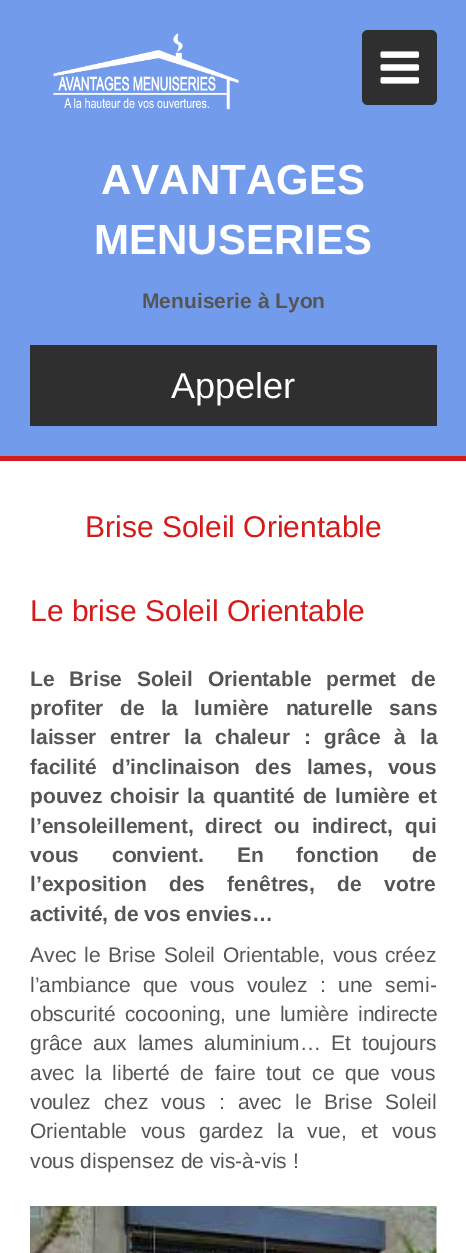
%!PS
<< /PageSize [466 1253] >> setpagedevice
/rgb { dup -16 bitshift 255 div exch dup -8 bitshift 255 and 255 div exch 255 and 255 div setrgbcolor } def
/font { [ exch dup neg 0 0 3 -1 roll 0 0 ] selectfont } def
/text { moveto show } def
/roundrect { 5 dict begin { /r /h /w /y /x } { exch def } forall
  x r add y moveto x w add y 2 copy h add r arct x w add y h add x 1 index r arct
  x y h add x y r arct x y 2 copy exch w add exch r arct closepath end } def
/picture { 5 dict begin { /h /w /y /x /name } { exch def } forall
  gsave x y translate w h scale
  w h 8 [w 0 0 h 0 0] name (r) file false 3 colorimage grestore end } def
0 1253 translate 1 -1 scale
4 setmiterlimit
/s1 { /LiberationSans-Bold 42 font 16#FFFFFF rgb } def
/s2 { /LiberationSans-Bold 21 font 16#555555 rgb } def
/s3 { /LiberationSans-Regular 36 font 16#FFFFFF rgb } def
/s4 { /LiberationSans-Regular 30 font 16#D51A1A rgb } def
/s5 { /LiberationSans-Regular 21 font 16#555555 rgb } def
16#FFFFFF rgb
0 0 466 1253 rectfill
16#739BEB rgb
0 0 466 456 rectfill
16#D51A1A rgb
0 456 466 5 rectfill
(pic1.raw) 53 33 186 77 picture
16#2F2F2F rgb
362 30 75 75 6 roundrect fill
(pic2.raw) 380 51 40 33 picture
s1
(AVANTAGES) 101 194 text
(MENUSERIES) 94 254 text
s2
(Menuiserie à Lyon) 142 308 text
16#2F2F2F rgb
30 345 407 81 rectfill
s3
(Appeler) 171 398 text
s4
(Brise Soleil Orientable) 85 537 text
(Le brise Soleil Orientable) 30 621 text
/LiberationSans-Bold 21 font
16#555555 rgb
30 686 moveto 9 0 32 (Le Brise Soleil Orientable permet de) widthshow
30 715 moveto 10.5 0 32 (profiter de la lumière naturelle sans) widthshow
30 744 moveto 8 0 32 (laisser entrer la chaleur : grâce à la) widthshow
30 774 moveto 9.5 0 32 (facilité d’inclinaison des lames, vous) widthshow
30 803 moveto 2.25 0 32 (pouvez choisir la quantité de lumière et) widthshow
30 833 moveto 6 0 32 (l’ensoleillement, direct ou indirect, qui) widthshow
30 862 moveto 27 0 32 (vous convient. En fonction de) widthshow
30 891 moveto 16.5 0 32 (l’exposition des fenêtres, de votre) widthshow
(activité, de vos envies…) 30 921 text
/LiberationSans-Regular 21 font
30 962 moveto 1.75 0 32 (Avec le Brise Soleil Orientable, vous créez) widthshow
30 992 moveto 6.5 0 32 (l’ambiance que vous voulez : une semi-) widthshow
30 1021 moveto 3.5 0 32 (obscurité cocooning, une lumière indirecte) widthshow
30 1050 moveto 4.75 0 32 (grâce aux lames aluminium… Et toujours) widthshow
30 1080 moveto 5 0 32 (avec la liberté de faire tout ce que vous) widthshow
30 1109 moveto 7.25 0 32 (voulez chez vous : avec le Brise Soleil) widthshow
30 1138 moveto 8 0 32 (Orientable vous gardez la vue, et vous) widthshow
(vous dispensez de vis-à-vis !) 30 1168 text
(pic3.raw) 30 1206 407 47 picture
showpage
